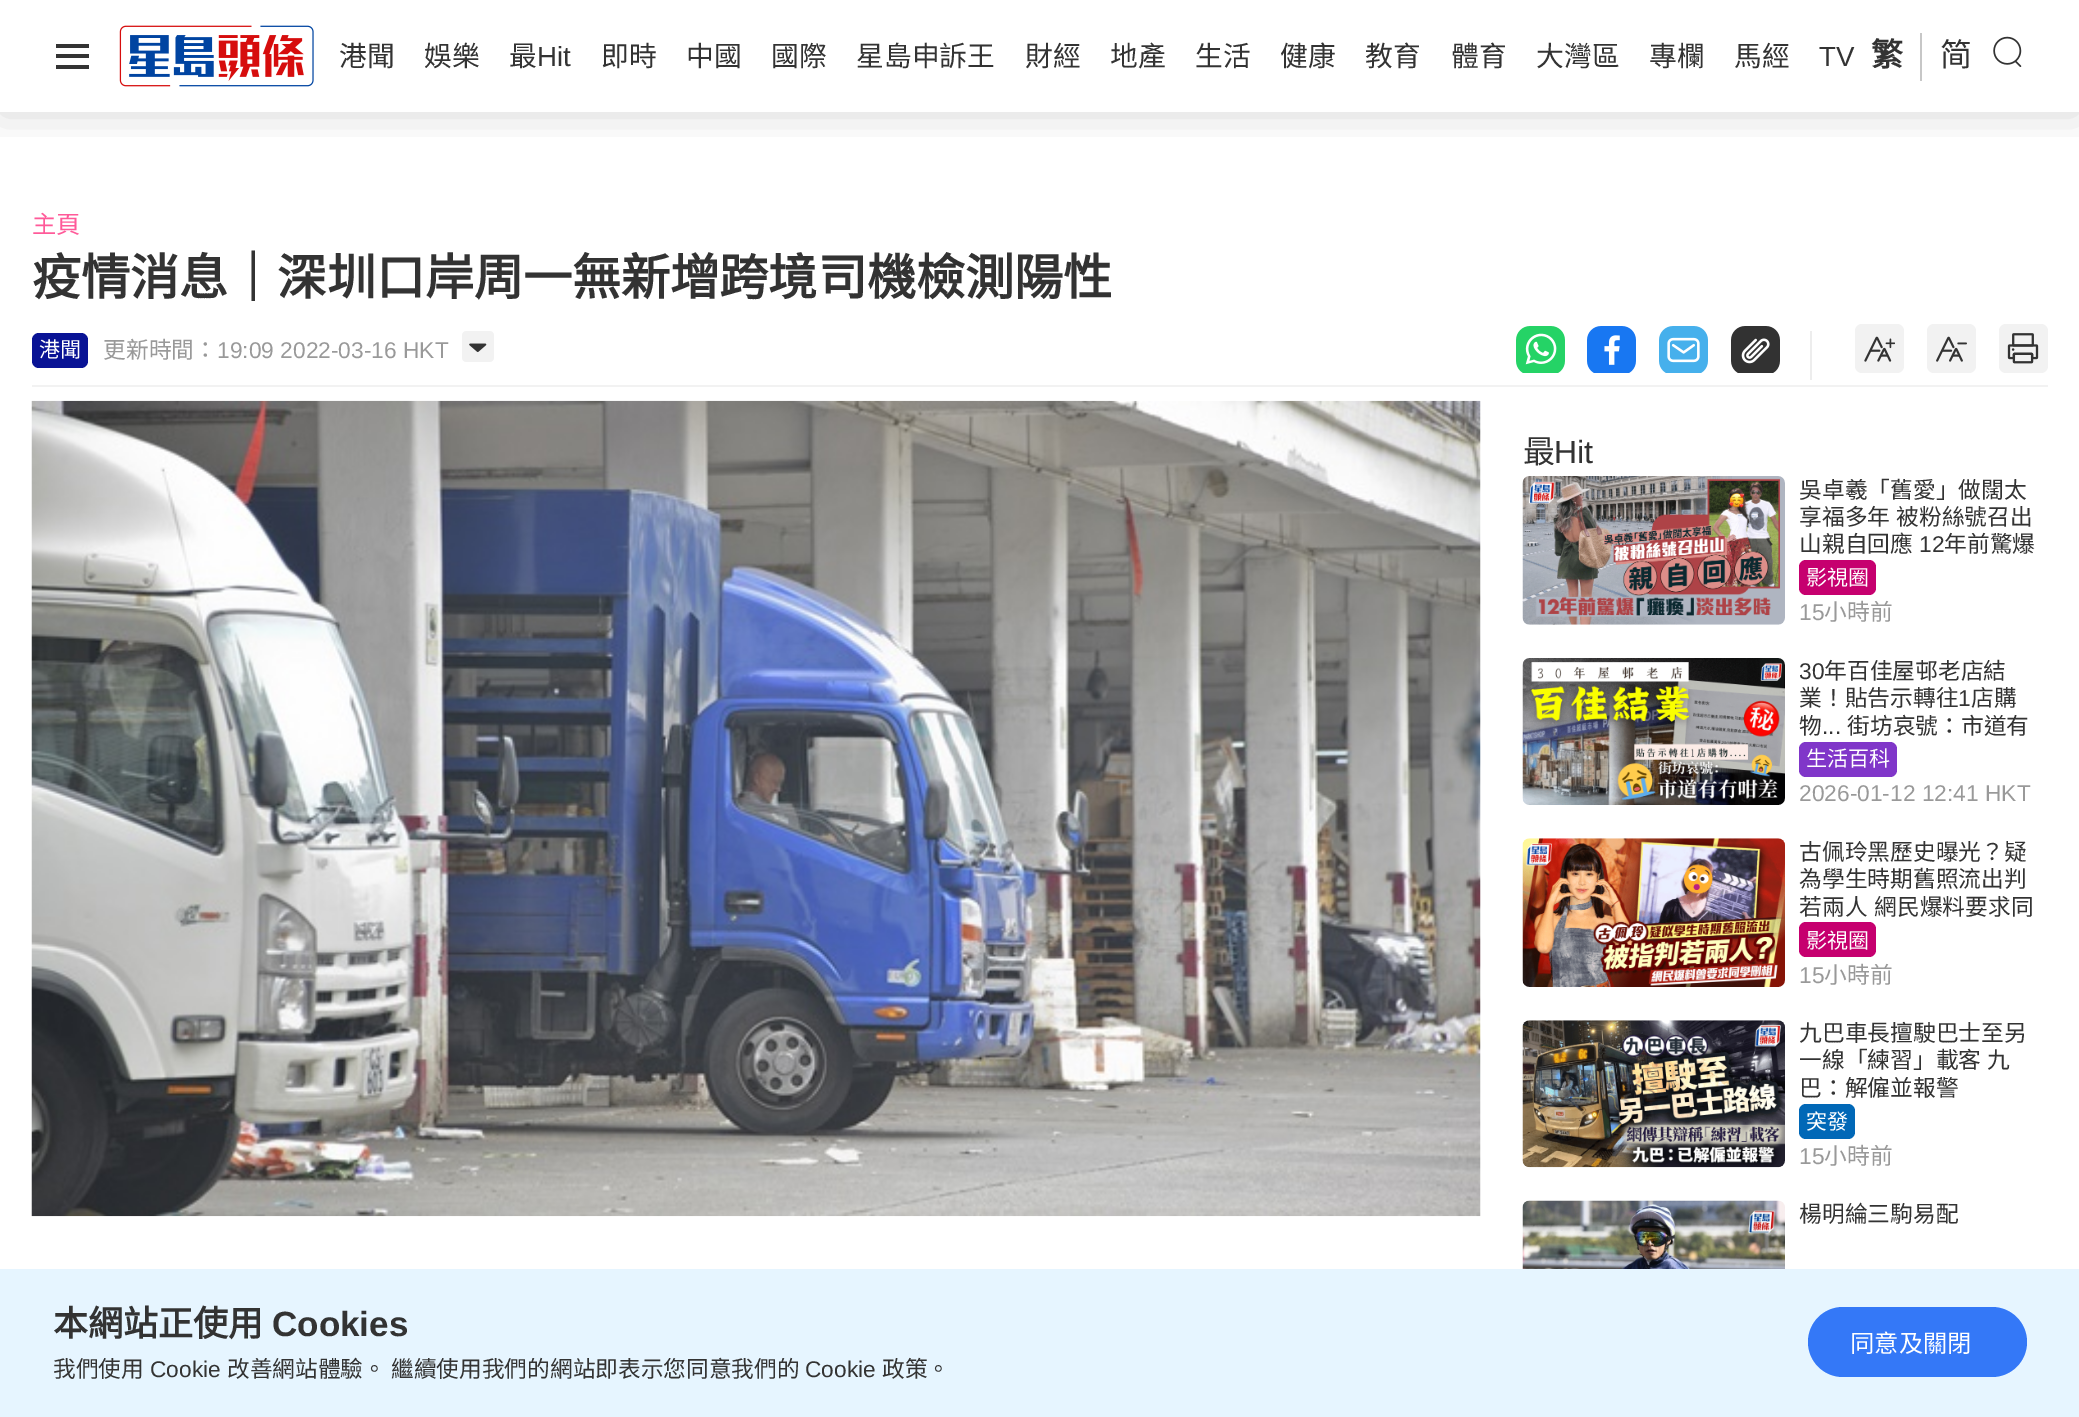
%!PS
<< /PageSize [2079 1417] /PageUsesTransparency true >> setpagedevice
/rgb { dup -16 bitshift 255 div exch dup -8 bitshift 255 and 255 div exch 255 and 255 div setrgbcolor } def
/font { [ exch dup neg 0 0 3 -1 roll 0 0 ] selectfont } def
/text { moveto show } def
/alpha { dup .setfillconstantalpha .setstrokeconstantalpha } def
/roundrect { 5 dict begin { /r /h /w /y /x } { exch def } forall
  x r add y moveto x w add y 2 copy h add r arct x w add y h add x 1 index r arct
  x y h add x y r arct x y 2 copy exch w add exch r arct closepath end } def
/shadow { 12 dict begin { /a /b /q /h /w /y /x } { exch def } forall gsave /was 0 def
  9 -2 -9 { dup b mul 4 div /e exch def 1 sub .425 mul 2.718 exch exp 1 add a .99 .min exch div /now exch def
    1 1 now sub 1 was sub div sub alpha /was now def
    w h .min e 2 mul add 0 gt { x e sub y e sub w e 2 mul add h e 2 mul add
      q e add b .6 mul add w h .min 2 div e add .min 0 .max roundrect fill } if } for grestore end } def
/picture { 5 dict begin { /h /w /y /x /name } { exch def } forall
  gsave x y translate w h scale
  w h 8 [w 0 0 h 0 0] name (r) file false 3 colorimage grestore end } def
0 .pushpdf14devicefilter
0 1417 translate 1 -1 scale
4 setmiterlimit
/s1 { /NotoSansCJKHK-Regular 27.75 font 16#333333 rgb } def
/s2 { /LiberationSans-Regular 27.75 font 16#333333 rgb } def
/s3 { /NotoSansCJKHK-Bold 32 font 16#333333 rgb } def
/s4 { /NotoSansCJKHK-Regular 32 font 16#333333 rgb } def
/s5 { /NotoSansCJKHK-Regular 24.25 font 16#FF5A99 rgb } def
/s6 { /NotoSansCJKHK-Bold 49.1 font 16#333333 rgb } def
/s7 { /NotoSansCJKHK-Regular 21 font 16#FFFFFF rgb } def
/s8 { /NotoSansCJKHK-Regular 22.75 font 16#999999 rgb } def
/s9 { /LiberationSans-Regular 22.75 font 16#999999 rgb } def
/s10 { /LiberationSans-Regular 32 font 16#333333 rgb } def
/s11 { /NotoSansCJKHK-Regular 22.75 font 16#333333 rgb } def
/s12 { /LiberationSans-Regular 22.75 font 16#333333 rgb } def
/s13 { /NotoSansCJKHK-Bold 35 font 16#333333 rgb } def
/s14 { /LiberationSans-Bold 35 font 16#333333 rgb } def
/s15 { /NotoSansCJKHK-Regular 22.7 font 16#333333 rgb } def
/s16 { /LiberationSans-Regular 22.7 font 16#333333 rgb } def
/s17 { /NotoSansCJKHK-Regular 24.25 font 16#FFFFFF rgb } def
16#FFFFFF rgb
0 0 2079 1417 rectfill
gsave
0 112 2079 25 rectclip
16#000000 rgb
0 2 2079 112 0 21 0.15 shadow
grestore
16#333333 rgb
56 44 33 4 rectfill
56 54 33 4 rectfill
56 65 33 4 rectfill
(pic1.raw) 119 25 195 62 picture
s1
(港聞) 339 66 text
(娛樂) 424 66 text
(最) 509 66 text
s2
(Hit) 537 66 text
s1
(即時) 601 66 text
(中國) 686 66 text
(國際) 771 66 text
(星島申訴王) 856 66 text
(財經) 1025 66 text
(地產) 1110 66 text
(生活) 1195 66 text
(健康) 1280 66 text
(教育) 1365 66 text
(體育) 1451 66 text
(大灣區) 1536 66 text
(專欄) 1649 66 text
(馬經) 1734 66 text
s2
(TV) 1819 66 text
16#C7C7C7 rgb
1920 33 2 48 rectfill
s3
(繁) 1871 66 text
s4
(简) 1940 66 text
(pic2.raw) 1993 36 29 31 picture
s5
(主頁) 32 233 text
s6
(疫情消息｜深圳口岸周一無新增跨境司機檢測陽性) 32 295 text
16#F2F2F2 rgb
32 385 2016 2 rectfill
16#091395 rgb
32 333 56 35 7 roundrect fill
s7
(港聞) 39 357 text
s8
(更新時間：) 103 358 text
s9
(19:09 2022-03-16 HKT) 217 358 text
(pic3.raw) 462 331 32 31 picture
(pic4.raw) 1516 326 49 47 picture
(pic5.raw) 1587 326 49 47 picture
(pic6.raw) 1659 326 49 47 picture
(pic7.raw) 1731 326 49 47 picture
16#EDEDED rgb
1810 331 2 49 rectfill
16#F2F2F2 rgb
1855 324 49 49 7 roundrect fill
(pic8.raw) 1864 336 31 26 picture
1927 324 49 49 7 roundrect fill
(pic9.raw) 1936 336 31 26 picture
1999 324 49 49 7 roundrect fill
(pic10.raw) 2007 333 32 31 picture
(pic11.raw) 31 400 1450 817 picture
s4
(最) 1523 463 text
s10
(Hit) 1554 463 text
(pic12.raw) 1522 476 263 149 picture
s11
(吳卓羲「舊愛」做闊太) 1799 498 text
(享福多年) 1799 525 text
(被粉絲號召出) 1896 525 text
(山親自回應) 1799 552 text
s12
(12) 1919 552 text
s11
(年前驚爆) 1944 552 text
16#C6006F rgb
1799 560 77 35 7 roundrect fill
s7
(影視圈) 1806 585 text
s9
(15) 1799 620 text
s8
(小時前) 1824 620 text
(pic13.raw) 1522 658 263 147 picture
s12
(30) 1799 679 text
s11
(年百佳屋邨老店結) 1824 679 text
(業！貼告示轉往) 1799 706 text
s12
(1) 1958 706 text
s11
(店購) 1971 706 text
(物) 1799 734 text
s12
(...) 1822 734 text
s11
(街坊哀號：市道有) 1847 734 text
16#8036C9 rgb
1799 742 98 35 7 roundrect fill
s7
(生活百科) 1806 766 text
s9
(2026-01-12 12:41 HKT) 1799 801 text
(pic14.raw) 1522 838 263 149 picture
s11
(古佩玲黑歷史曝光？疑) 1799 860 text
(為學生時期舊照流出判) 1799 887 text
(若兩人) 1799 915 text
(網民爆料要求同) 1874 915 text
16#C6006F rgb
1799 922 77 35 7 roundrect fill
s7
(影視圈) 1806 948 text
s9
(15) 1799 983 text
s8
(小時前) 1824 983 text
(pic15.raw) 1522 1020 263 148 picture
s11
(九巴車長擅駛巴士至另) 1799 1041 text
1799 1068 moveto 1 0 32 (一線「練習」載客 九) widthshow
(巴：解僱並報警) 1799 1096 text
16#0168B7 rgb
1799 1104 56 35 7 roundrect fill
s7
(突發) 1806 1129 text
s9
(15) 1799 1164 text
s8
(小時前) 1824 1164 text
(pic16.raw) 1522 1200 263 69 picture
s11
(楊明綸三駒易配) 1799 1222 text
16#E6F5FF rgb
0 1269 2079 148 rectfill
s13
(本網站正使用) 53 1336 text
s14
(Cookies) 272 1336 text
s15
(我們使用) 53 1377 text
s16
(Cookie) 150 1377 text
s15
(改善網站體驗。 繼續使用我們的網站即表示您同意我們的) 227 1377 text
s16
(Cookie) 805 1377 text
s15
(政策。) 882 1377 text
16#3478F7 rgb
1808 1307 219 70 35 roundrect fill
s17
(同意及關閉) 1850 1352 text
.poppdf14devicefilter showpage
